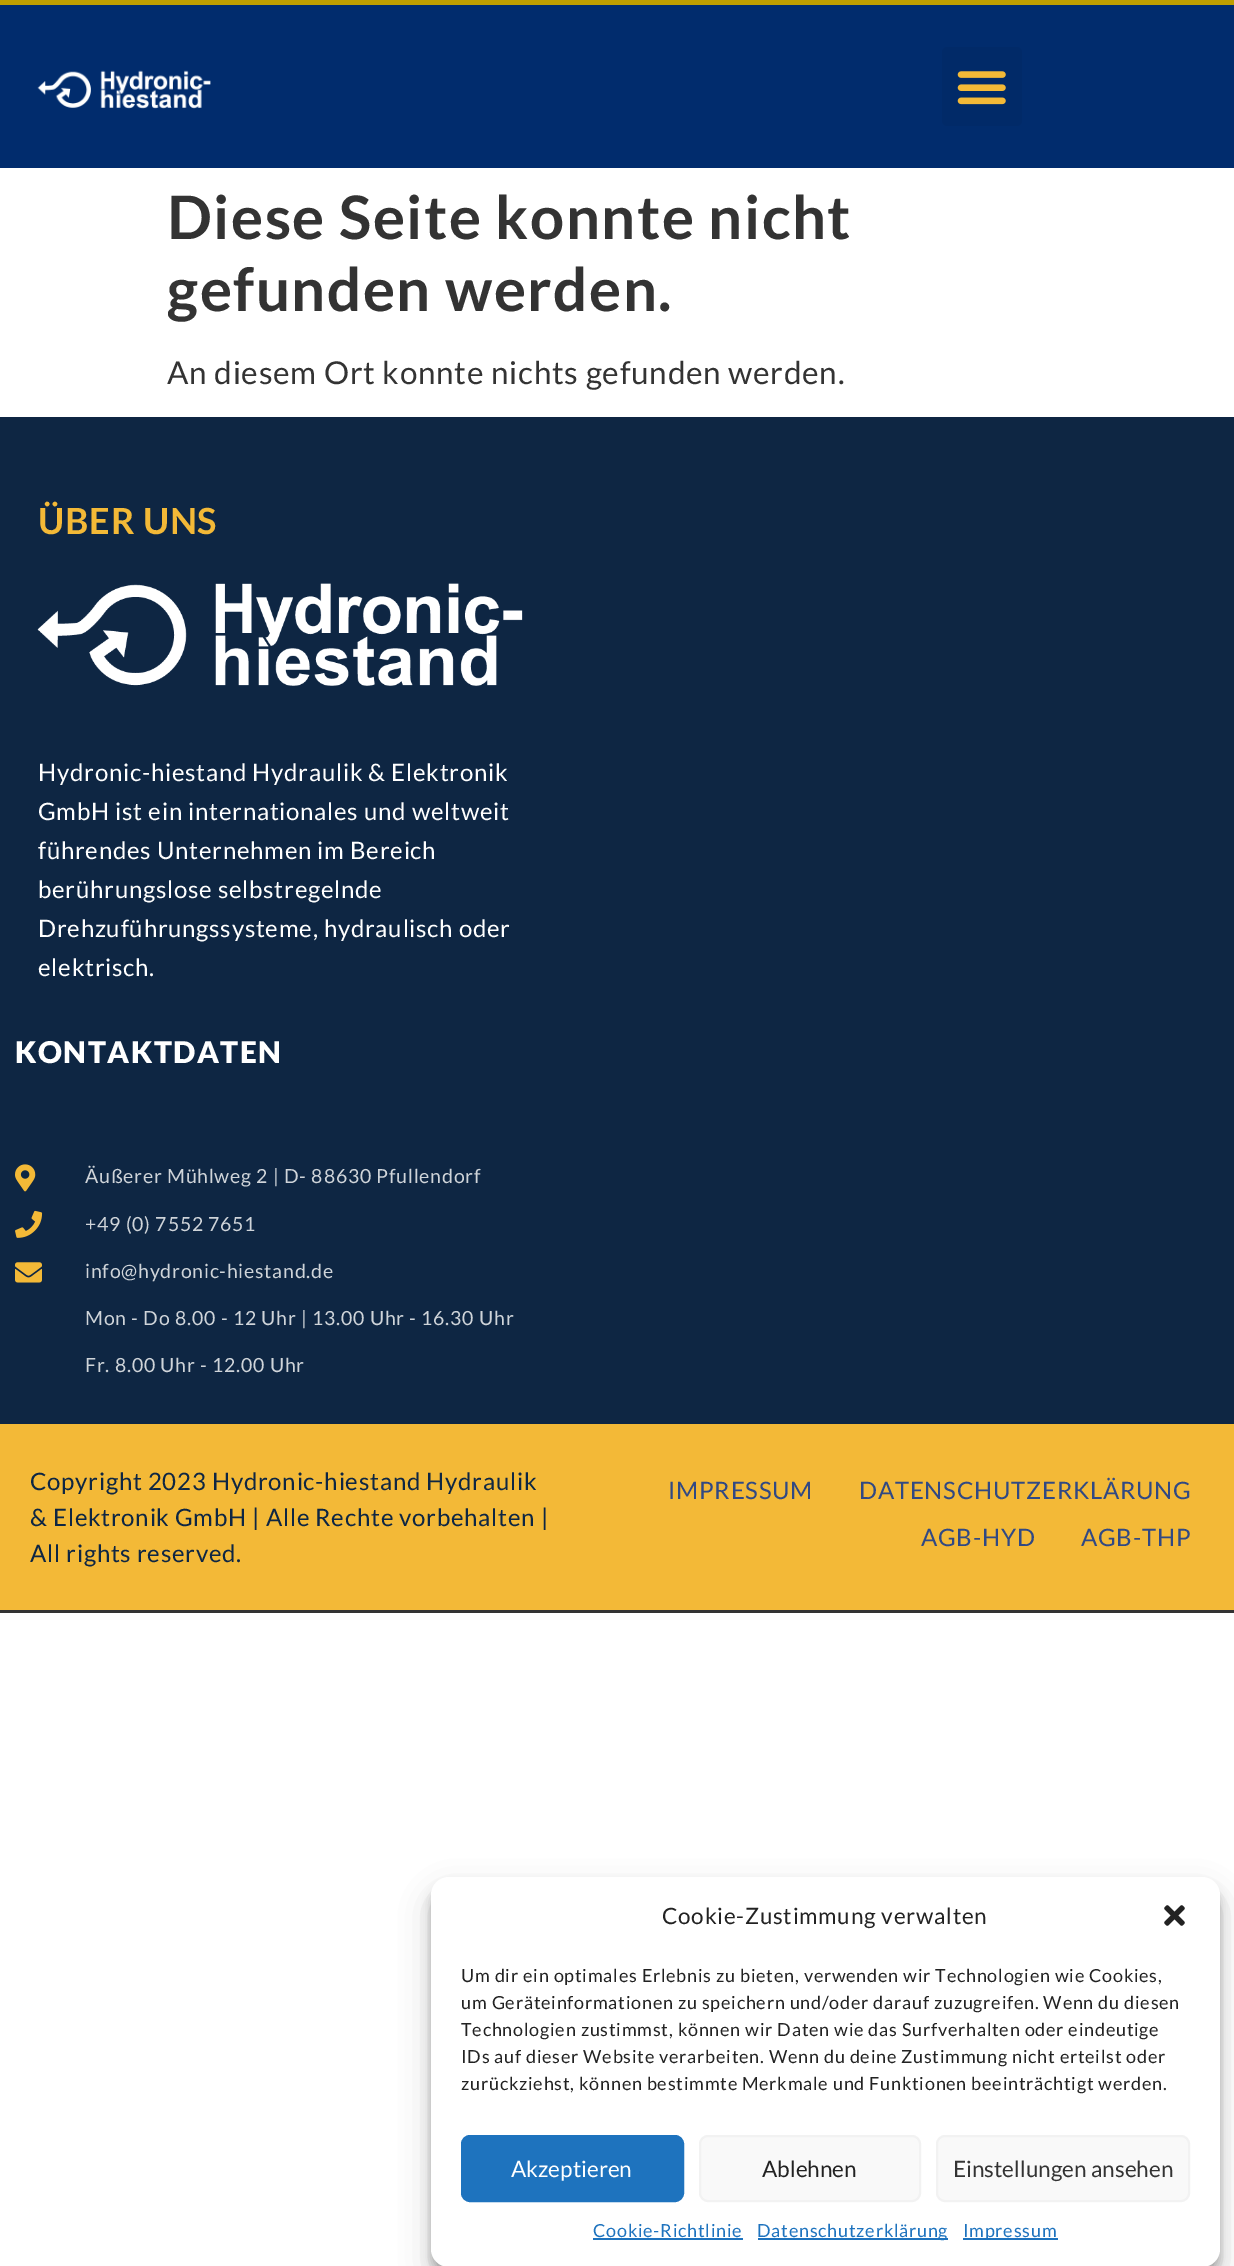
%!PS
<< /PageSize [1234 2266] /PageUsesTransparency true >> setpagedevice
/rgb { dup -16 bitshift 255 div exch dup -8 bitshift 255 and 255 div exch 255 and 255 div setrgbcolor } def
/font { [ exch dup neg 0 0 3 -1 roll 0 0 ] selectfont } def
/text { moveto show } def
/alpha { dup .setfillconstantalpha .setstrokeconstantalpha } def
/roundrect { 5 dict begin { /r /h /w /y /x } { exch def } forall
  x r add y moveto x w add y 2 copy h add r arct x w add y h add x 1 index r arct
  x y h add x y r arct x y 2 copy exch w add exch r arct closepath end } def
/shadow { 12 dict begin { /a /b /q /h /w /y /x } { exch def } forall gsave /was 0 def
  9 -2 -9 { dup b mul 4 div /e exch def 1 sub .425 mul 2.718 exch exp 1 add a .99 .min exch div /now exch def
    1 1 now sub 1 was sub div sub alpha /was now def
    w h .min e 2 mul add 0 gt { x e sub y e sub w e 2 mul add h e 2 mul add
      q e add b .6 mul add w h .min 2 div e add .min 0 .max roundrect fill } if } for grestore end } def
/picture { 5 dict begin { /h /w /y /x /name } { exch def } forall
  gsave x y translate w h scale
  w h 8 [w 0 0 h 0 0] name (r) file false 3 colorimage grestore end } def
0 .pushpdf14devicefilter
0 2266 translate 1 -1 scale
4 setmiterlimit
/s1 { /Lato-Regular 22.5 font 16#FFFFFF rgb } def
/s2 { /Lato-Regular 22.5 font 16#222222 rgb } def
/s3 { /Lato-Regular 22.5 font 16#333333 rgb } def
16#FFFFFF rgb
0 0 1234 2266 rectfill
16#012C6D rgb
0 5 1234 163 rectfill
16#BF9F00 rgb
0 0 1234 5 rectfill
(pic1.raw) 37 70 174 39 picture
16#012A68 rgb
942 47 80 79 5 roundrect fill
(pic2.raw) 957 71 49 34 picture
/Lato-Bold 60 font
16#333333 rgb
167 239 moveto 1.5 0 (Diese Seite konnte nicht) ashow
167 311 moveto 1.5 0 (gefunden werden.) ashow
/Lato-Regular 31.5 font
167 384 moveto 0.75 0 (An diesem Ort konnte nichts gefunden werden.) ashow
16#0E2643 rgb
0 417 1234 1007 rectfill
/Lato-Bold 36 font
16#F3B937 rgb
38 534 moveto 0.75 0 (ÜBER UNS) ashow
(pic3.raw) 37 583 486 103 picture
/Lato-Regular 24 font
16#FFFFFF rgb
38 781 moveto 0.75 0 (Hydronic-hiestand Hydraulik & Elektronik) ashow
38 820 moveto 0.75 0 (GmbH ist ein internationales und weltweit) ashow
38 859 moveto 0.75 0 (führendes Unternehmen im Bereich) ashow
38 898 moveto 0.75 0 (berührungslose selbstregelnde) ashow
38 937 moveto 0.75 0 (Drehzuführungssysteme, hydraulisch oder) ashow
38 976 moveto 0.75 0 (elektrisch.) ashow
/Lato-Black 30 font
15 1063 moveto 1.5 0 (KONTAKTDATEN) ashow
(pic4.raw) 15 1164 21 28 picture
/Lato-Regular 19.5 font
16#CFD4D9 rgb
85 1183 moveto 0.75 0 (Äußerer Mühlweg 2 | D- 88630 Pfullendorf) ashow
(pic5.raw) 15 1210 28 28 picture
85 1231 moveto 0.75 0 (+49 \(0\) 7552 7651) ashow
(pic6.raw) 15 1262 27 21 picture
85 1278 moveto 0.75 0 (info@hydronic-hiestand.de) ashow
85 1325 moveto 0.75 0 (Mon - Do 8.00 - 12 Uhr | 13.00 Uhr - 16.30 Uhr) ashow
85 1372 moveto 0.75 0 (Fr. 8.00 Uhr - 12.00 Uhr) ashow
16#F3B937 rgb
0 1424 1234 186 rectfill
16#333333 rgb
0 1610 1234 3 rectfill
/Lato-Regular 24 font
16#0E2643 rgb
30 1490 moveto 0.75 0 (Copyright 2023 Hydronic-hiestand Hydraulik) ashow
30 1526 moveto 0.75 0 (& Elektronik GmbH | Alle Rechte vorbehalten |) ashow
30 1562 moveto 0.75 0 (All rights reserved.) ashow
16#314983 rgb
668 1499 moveto 0.75 0 (IMPRESSUM) ashow
859 1499 moveto 0.75 0 (DATENSCHUTZERKLÄRUNG) ashow
921 1546 moveto 0.75 0 (AGB-HYD) ashow
1081 1546 moveto 0.75 0 (AGB-THP) ashow
16#000000 rgb
431 1886 789 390 18 4.5 0.23 shadow
431 1892 789 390 18 15 0.19 shadow
16#FFFFFF rgb
431 1877 789 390 18 roundrect fill
/Lato-Regular 22.5 font
16#222222 rgb
662 1924 moveto 0.75 0 (Cookie-Zustimmung verwalten) ashow
(pic7.raw) 1164 1905 21 21 picture
/Lato-Regular 18 font
461 1982 moveto 0.75 0 (Um dir ein optimales Erlebnis zu bieten, verwenden wir Technologien wie Cookies,) ashow
461 2009 moveto 0.75 0 (um Geräteinformationen zu speichern und/oder darauf zuzugreifen. Wenn du diesen) ashow
461 2036 moveto 0.75 0 (Technologien zustimmst, können wir Daten wie das Surfverhalten oder eindeutige) ashow
461 2063 moveto 0.75 0 (IDs auf dieser Website verarbeiten. Wenn du deine Zustimmung nicht erteilst oder) ashow
461 2090 moveto 0.75 0 (zurückziehst, können bestimmte Merkmale und Funktionen beeinträchtigt werden.) ashow
16#1E73BE rgb
462 2136 221 65 8 roundrect gsave fill grestore
2 setlinewidth
stroke
s1
(Akzeptieren) 511 2177 text
16#F9F9F9 rgb
700 2136 220 65 8 roundrect gsave fill grestore
16#F2F2F2 rgb
stroke
s2
(Ablehnen) 762 2177 text
16#F9F9F9 rgb
937 2136 252 65 8 roundrect gsave fill grestore
16#F2F2F2 rgb
stroke
s3
(Einstellungen ansehen) 953 2177 text
/Lato-Regular 18 font
16#1E73BE rgb
593 2237 moveto 0.75 0 (Cookie-Richtlinie) ashow
593 2238 150 2 rectfill
758 2238 190 2 rectfill
757 2237 moveto 0.75 0 (Datenschutzerklärung) ashow
963 2238 95 2 rectfill
963 2237 moveto 0.75 0 (Impressum) ashow
.poppdf14devicefilter showpage
